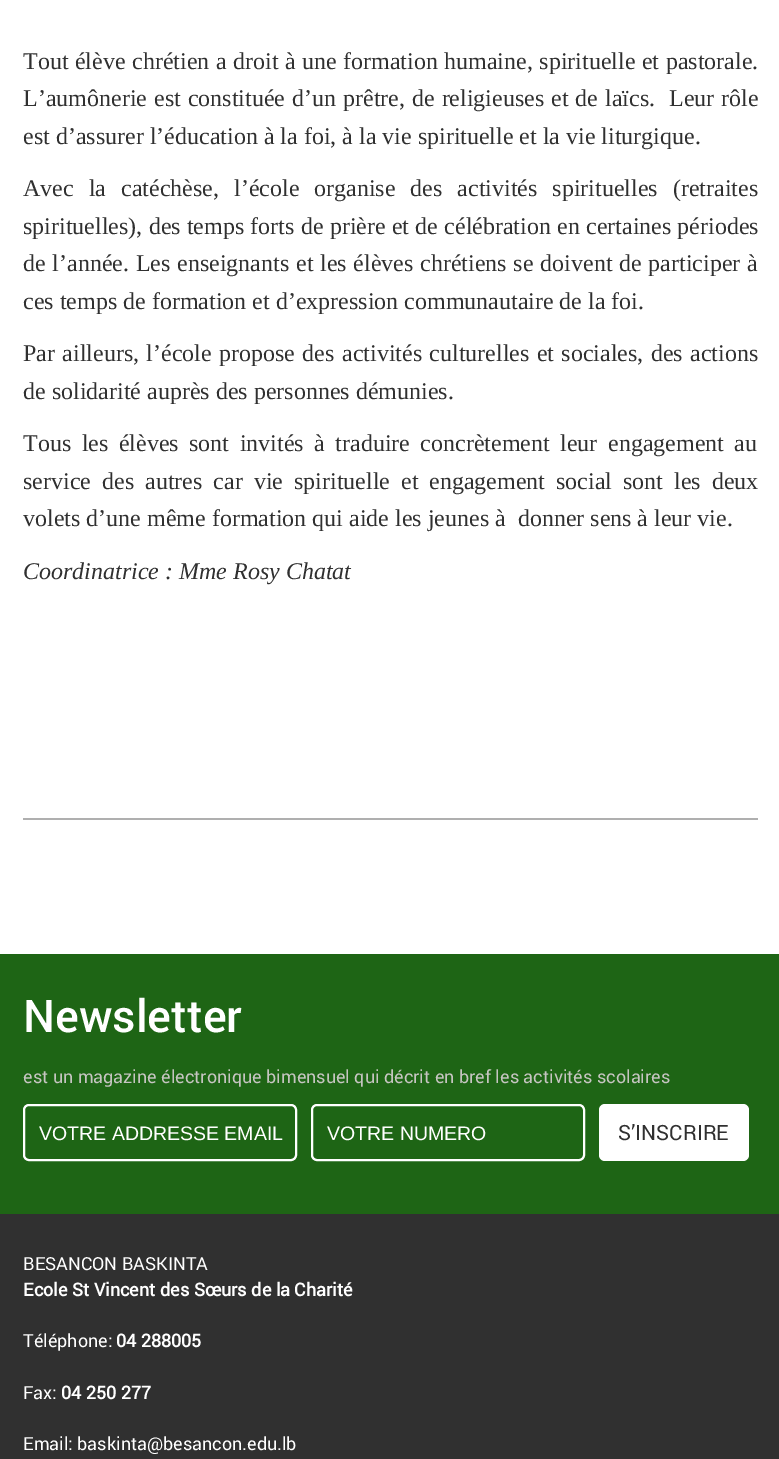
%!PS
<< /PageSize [779 1459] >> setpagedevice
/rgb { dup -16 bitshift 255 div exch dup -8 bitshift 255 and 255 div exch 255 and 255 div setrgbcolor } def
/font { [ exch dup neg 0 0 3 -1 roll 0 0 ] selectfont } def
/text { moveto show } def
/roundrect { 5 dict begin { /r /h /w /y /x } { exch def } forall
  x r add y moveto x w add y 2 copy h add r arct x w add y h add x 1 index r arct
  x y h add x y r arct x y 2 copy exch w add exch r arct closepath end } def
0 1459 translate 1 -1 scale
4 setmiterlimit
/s1 { /LiberationSerif-Regular 24 font 16#303030 rgb } def
/s2 { /LiberationSerif-Italic 24 font 16#303030 rgb } def
/s3 { /Roboto-Medium 45 font 16#FFFFFF rgb } def
/s4 { /Roboto-Regular 18 font 16#C6C5C1 rgb } def
/s5 { /LiberationSans-Regular 19.5 font 16#FFFFFF rgb } def
/s6 { /Roboto-Regular 21 font 16#303030 rgb } def
/s7 { /Roboto-Regular 18 font 16#FFFFFF rgb } def
/s8 { /Roboto-Bold 18 font 16#FFFFFF rgb } def
16#FFFFFF rgb
0 0 779 1459 rectfill
/LiberationSerif-Regular 24 font
16#303030 rgb
23 69 moveto 0.5 0 32 (Tout élève chrétien a droit à une formation humaine, spirituelle et pastorale.) widthshow
23 106 moveto 1 0 32 (L’aumônerie est constituée d’un prêtre, de religieuses et de laïcs.  Leur rôle) widthshow
(est d’assurer l’éducation à la foi, à la vie spirituelle et la vie liturgique.) 23 144 text
23 196 moveto 9 0 32 (Avec la catéchèse, l’école organise des activités spirituelles \(retraites) widthshow
23 234 moveto 0.25 0 32 (spirituelles\), des temps forts de prière et de célébration en certaines périodes) widthshow
23 271 moveto 0.75 0 32 (de l’année. Les enseignants et les élèves chrétiens se doivent de participer à) widthshow
(ces temps de formation et d’expression communautaire de la foi.) 23 309 text
23 361 moveto 1.4 0 32 (Par ailleurs, l’école propose des activités culturelles et sociales, des actions) widthshow
(de solidarité auprès des personnes démunies.) 23 399 text
23 451 moveto 4.5 0 32 (Tous les élèves sont invités à traduire concrètement leur engagement au) widthshow
23 489 moveto 5 0 32 (service des autres car vie spirituelle et engagement social sont les deux) widthshow
(volets d’une même formation qui aide les jeunes à  donner sens à leur vie.) 23 526 text
s2
(Coordinatrice : Mme Rosy Chatat) 23 579 text
16#AFAFAF rgb
23 818 735 2 rectfill
16#1E6515 rgb
0 954 779 260 rectfill
s3
(Newsletter) 23 1032 text
s4
(est un magazine électronique bimensuel qui décrit en bref les activités scolaires) 23 1083 text
16#FFFFFF rgb
2 setlinewidth
24 1105 272 55 5 roundrect stroke
s5
(VOTRE ADDRESSE EMAIL) 39 1140 text
312 1105 272 55 5 roundrect stroke
(VOTRE NUMERO) 327 1140 text
599 1104 150 57 6 roundrect fill
s6
(S’INSCRIRE) 618 1140 text
0 1214 779 245 rectfill
s7
(BESANCON BASKINTA) 23 1270 text
s8
(Ecole St Vincent des Sœurs de la Charité) 23 1296 text
s7
(Téléphone:) 23 1347 text
s8
(04 288005) 116 1347 text
s7
(Fax:) 23 1399 text
s8
(04 250 277) 61 1399 text
s7
(Email: baskinta@besancon.edu.lb) 23 1450 text
showpage
